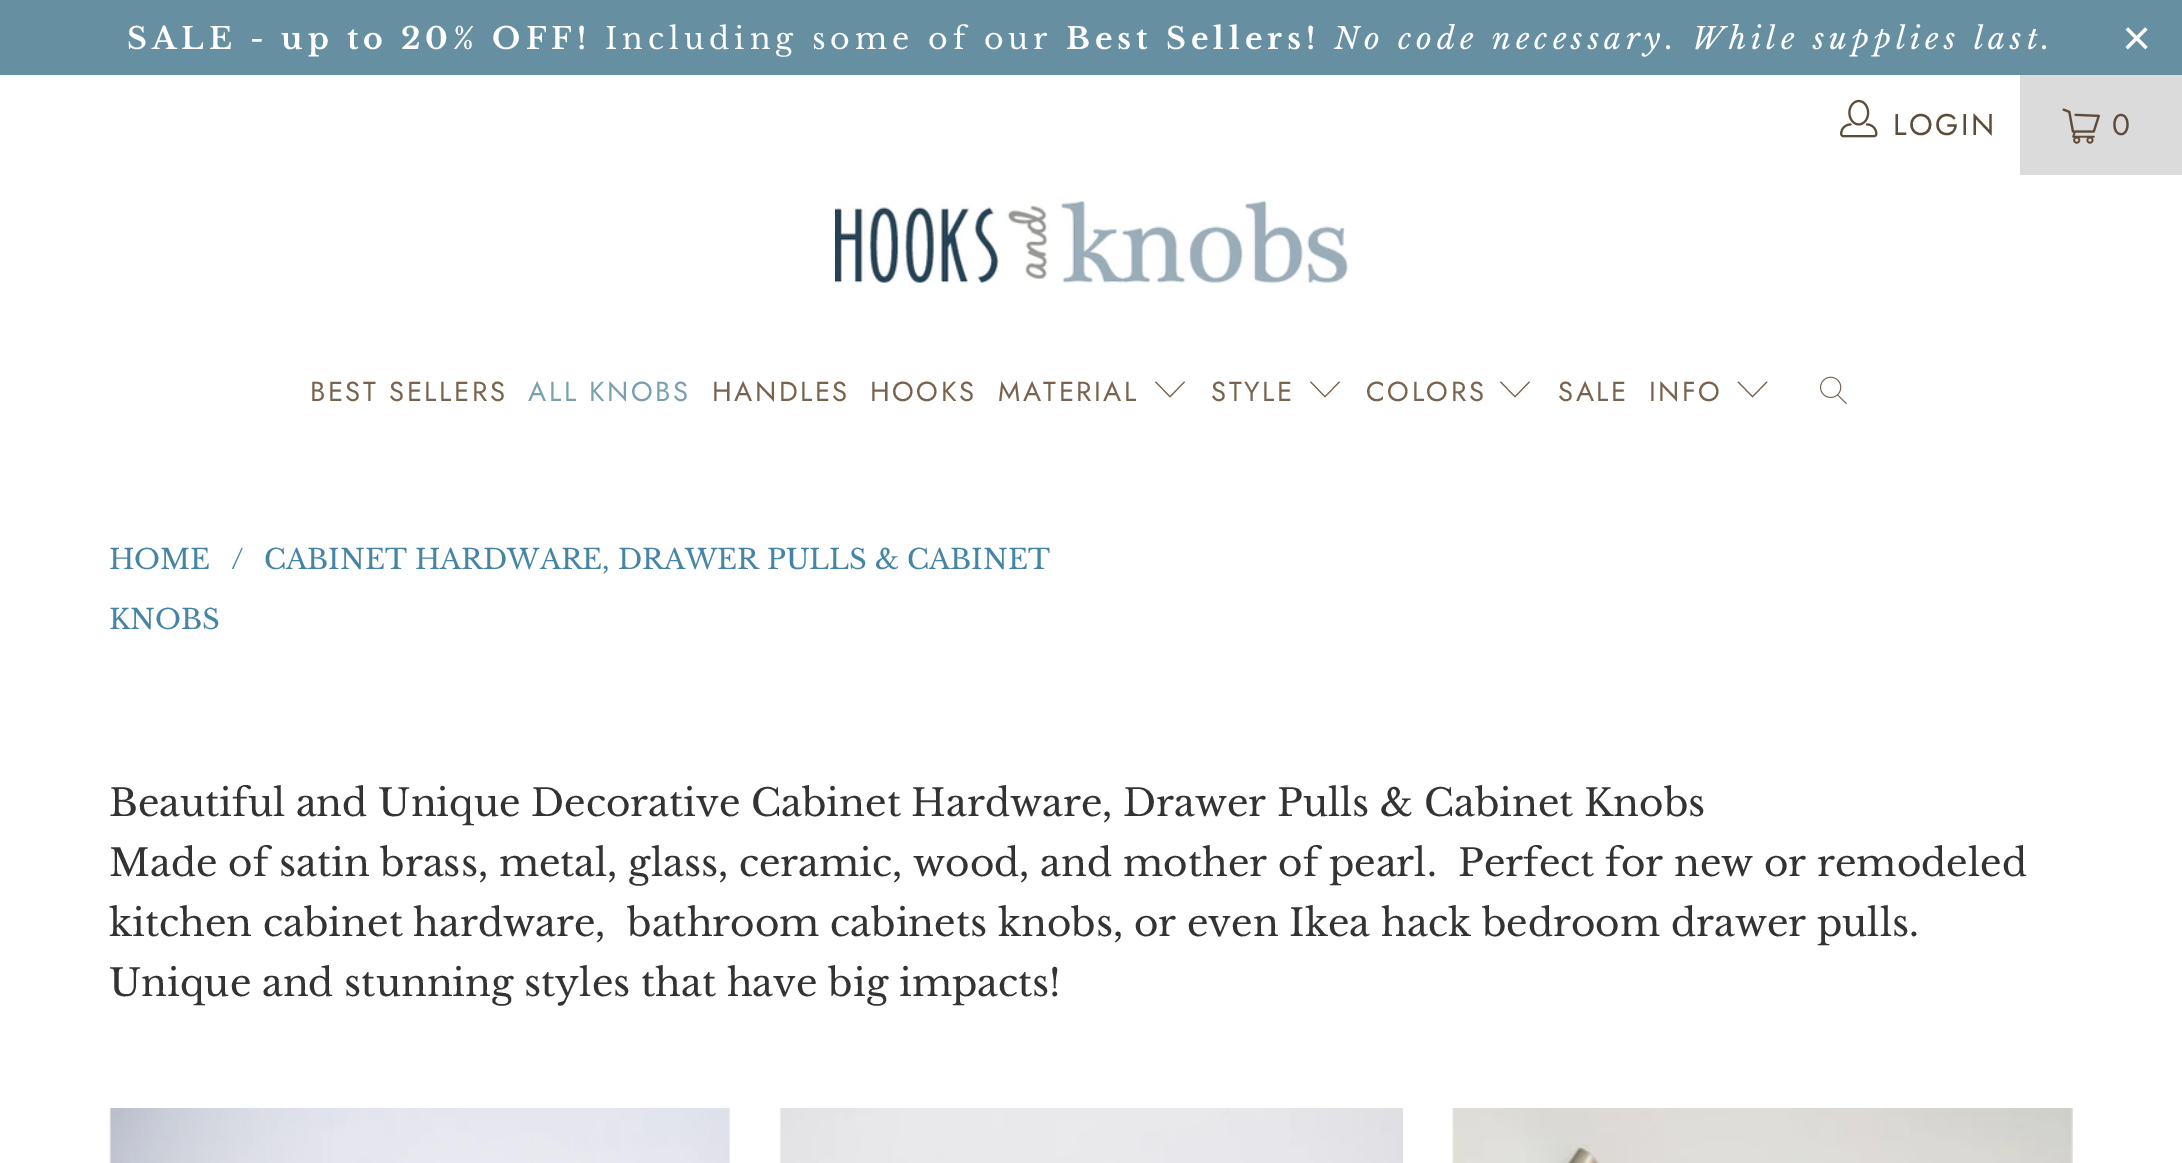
%!PS
<< /PageSize [2182 1163] >> setpagedevice
/rgb { dup -16 bitshift 255 div exch dup -8 bitshift 255 and 255 div exch 255 and 255 div setrgbcolor } def
/font { [ exch dup neg 0 0 3 -1 roll 0 0 ] selectfont } def
/text { moveto show } def
/picture { 5 dict begin { /h /w /y /x /name } { exch def } forall
  gsave x y translate w h scale
  w h 8 [w 0 0 h 0 0] name (r) file false 3 colorimage grestore end } def
0 1163 translate 1 -1 scale
4 setmiterlimit
/s1 { /LibreBaskerville-Regular 27.5 font 16#4484A7 rgb } def
/s2 { /LibreBaskerville-Regular 37.5 font 16#333333 rgb } def
16#FFFFFF rgb
0 0 2182 1163 rectfill
16#668FA1 rgb
0 0 2182 75 rectfill
/LibreBaskerville-Bold 30 font
16#FFFFFF rgb
127 49 moveto 5 0 (SALE - up to 20% OFF!) ashow
/LibreBaskerville-Regular 30 font
605 49 moveto 5 0 (Including some of our) ashow
/LibreBaskerville-Bold 30 font
1066 49 moveto 5 0 (Best Sellers!) ashow
/LibreBaskerville-Italic 30 font
1334 49 moveto 5 0 (No code necessary. While supplies last.) ashow
/LiberationSans-Regular 50 font
2122 55 moveto 5 0 (×) ashow
(pic1.raw) 1840 99 38 39 picture
/Jost-Regular 30 font
16#5E4C39 rgb
1893 135 moveto 2.5 0 (LOGIN) ashow
16#DCDBDB rgb
2020 75 162 100 rectfill
(pic2.raw) 2062 108 38 36 picture
16#5E4C39 rgb
2112 135 moveto 2.5 0 (0) ashow
(pic3.raw) 835 200 513 83 picture
/Jost-Regular 27.5 font
16#79634C rgb
310 401 moveto 2.5 0 (BEST SELLERS) ashow
16#79A0B1 rgb
528 401 moveto 2.5 0 (ALL KNOBS) ashow
16#79634C rgb
712 401 moveto 2.5 0 (HANDLES) ashow
870 401 moveto 2.5 0 (HOOKS) ashow
998 401 moveto 2.5 0 (MATERIAL) ashow
1170 397.5 moveto 1155 382 lineto 1156 381.5 lineto 1170 396 lineto 1184 381.5 lineto 1185 382 lineto closepath fill
1211 401 moveto 2.5 0 (STYLE) ashow
1325 397.5 moveto 1310 382 lineto 1311 381.5 lineto 1325 396 lineto 1339 381.5 lineto 1340 382 lineto closepath fill
1366 401 moveto 2.5 0 (COLORS) ashow
1515 397.5 moveto 1500 382 lineto 1501 381.5 lineto 1515 396 lineto 1529 381.5 lineto 1530 382 lineto closepath fill
1558 401 moveto 2.5 0 (SALE) ashow
1649 401 moveto 2.5 0 (INFO) ashow
1752.5 397.5 moveto 1737.5 382 lineto 1738.5 381.5 lineto 1752.5 396 lineto 1766.5 381.5 lineto 1767.5 382 lineto closepath fill
(pic4.raw) 1819 376 28 29 picture
s1
(HOME) 109 569 text
(/) 231 569 text
(CABINET HARDWARE, DRAWER PULLS & CABINET) 264 569 text
(KNOBS) 109 629 text
s2
(Beautiful and Unique Decorative Cabinet Hardware, Drawer Pulls & Cabinet Knobs) 109 816 text
(Made of satin brass, metal, glass, ceramic, wood, and mother of pearl.  Perfect for new or remodeled) 109 876 text
(kitchen cabinet hardware,  bathroom cabinets knobs, or even Ikea hack bedroom drawer pulls.) 109 936 text
(Unique and stunning styles that have big impacts!) 109 996 text
(pic5.raw) 109 1108 622 55 picture
(pic6.raw) 779 1108 624 55 picture
(pic7.raw) 1452 1108 621 55 picture
showpage
